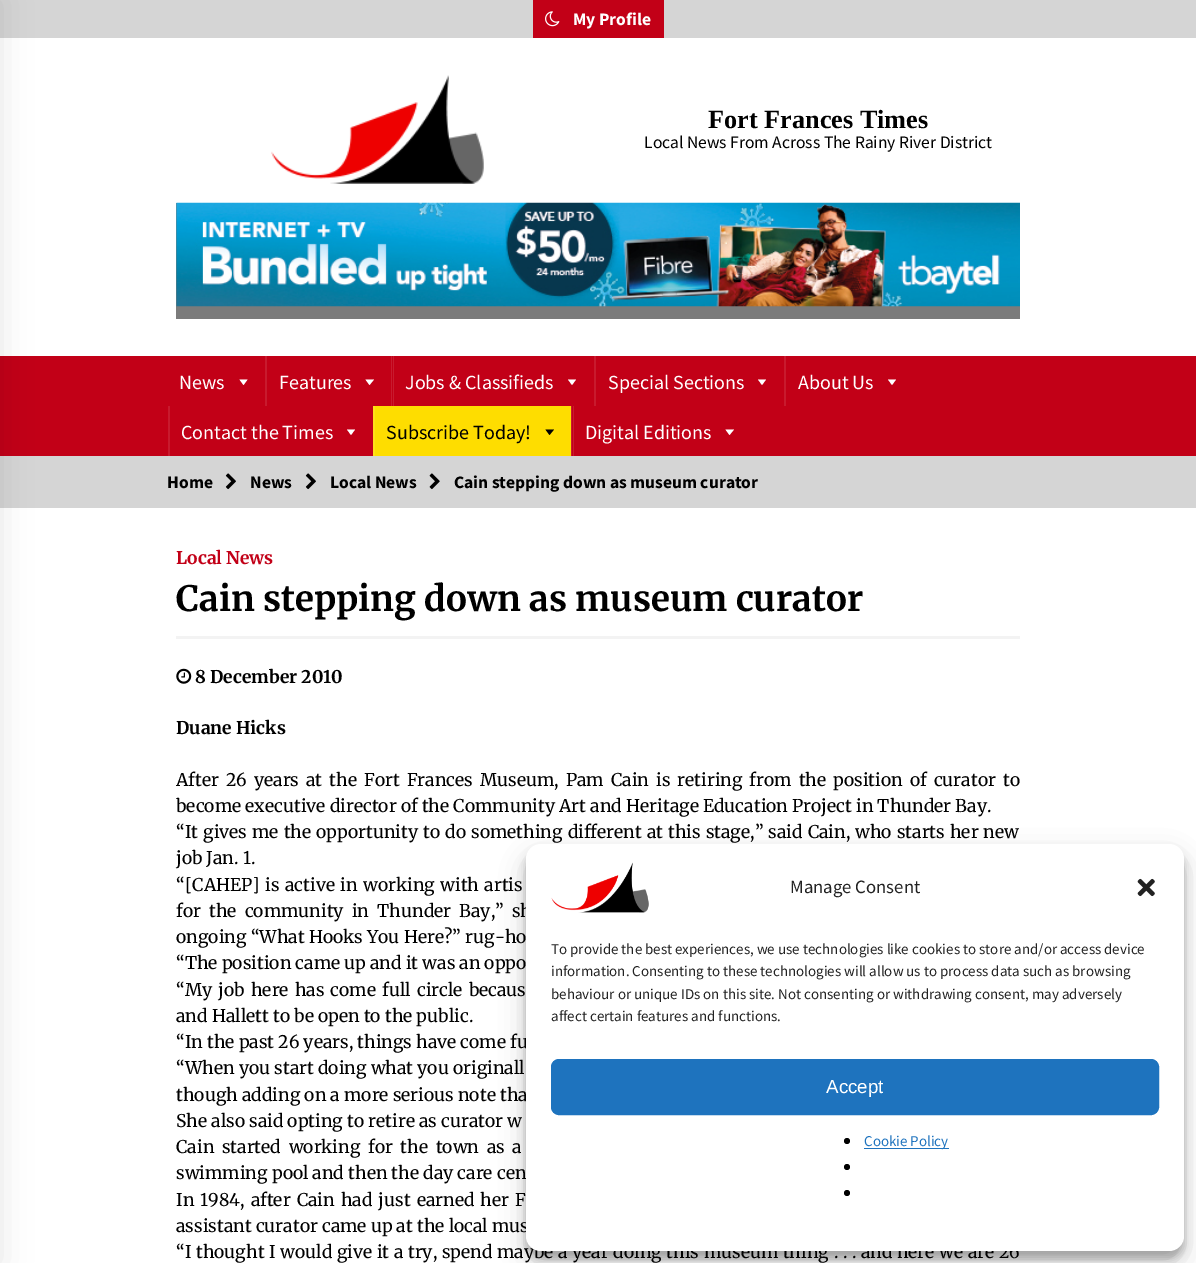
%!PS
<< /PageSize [1196 1263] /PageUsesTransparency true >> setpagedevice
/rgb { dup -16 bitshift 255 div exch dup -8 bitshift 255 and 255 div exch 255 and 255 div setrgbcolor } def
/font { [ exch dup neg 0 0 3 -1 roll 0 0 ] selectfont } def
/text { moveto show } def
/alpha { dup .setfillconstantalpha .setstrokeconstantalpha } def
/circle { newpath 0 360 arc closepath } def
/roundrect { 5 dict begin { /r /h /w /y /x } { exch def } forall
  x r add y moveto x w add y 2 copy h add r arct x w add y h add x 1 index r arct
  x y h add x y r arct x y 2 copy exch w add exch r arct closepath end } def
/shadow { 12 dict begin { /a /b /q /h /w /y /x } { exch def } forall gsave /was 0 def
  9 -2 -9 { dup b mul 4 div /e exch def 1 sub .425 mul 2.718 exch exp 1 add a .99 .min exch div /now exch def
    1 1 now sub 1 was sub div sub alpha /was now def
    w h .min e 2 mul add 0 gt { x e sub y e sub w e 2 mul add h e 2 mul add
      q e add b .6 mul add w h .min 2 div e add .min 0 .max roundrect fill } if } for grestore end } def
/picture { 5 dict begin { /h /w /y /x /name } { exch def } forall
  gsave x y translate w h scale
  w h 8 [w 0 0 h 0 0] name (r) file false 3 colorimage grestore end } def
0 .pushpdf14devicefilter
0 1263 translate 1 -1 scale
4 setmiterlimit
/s1 { /SourceSansPro-Bold 17.5 font 16#FFFFFF rgb } def
/s2 { /LiberationSerif-Bold 26.25 font 16#000000 rgb } def
/s3 { /SourceSansPro-Regular 17.5 font 16#000000 rgb } def
/s4 { /SourceSansPro-Regular 20 font 16#FFFFFF rgb } def
/s5 { /SourceSansPro-Regular 20 font 16#000000 rgb } def
/s6 { /SourceSansPro-Bold 17.5 font 16#000000 rgb } def
/s7 { /Merriweather-Bold 17.5 font 16#C20017 rgb } def
/s8 { /Merriweather-Bold 35 font 16#000000 rgb } def
/s9 { /Merriweather-Bold 17.5 font 16#000000 rgb } def
/s10 { /Merriweather-Regular 17.5 font 16#000000 rgb } def
/s11 { /SourceSansPro-Regular 18.75 font 16#222222 rgb } def
/s12 { /SourceSansPro-Regular 15 font 16#222222 rgb } def
/s13 { /LiberationSans-Regular 18.75 font 16#FFFFFF rgb } def
/s14 { /SourceSansPro-Regular 15 font 16#1E73BE rgb } def
16#FFFFFF rgb
0 0 1196 1263 rectfill
16#D5D5D5 rgb
0 0 1196 38 rectfill
16#C20017 rgb
0 356 1196 100 rectfill
16#D5D5D5 rgb
0 456 1196 52 rectfill
16#000000 rgb
-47 0 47 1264 0 15.5 0.1 shadow
16#C20017 rgb
533 0 131 38 rectfill
(pic1.raw) 545 11 15 16 picture
s1
(My Profile) 573 25 text
(pic2.raw) 271 75 213 109 picture
s2
(Fort Frances Times) 708 128 text
s3
(Local News From Across The Rainy River District) 644 148 text
16#7B7B7B rgb
176 203 844 116 rectfill
(pic3.raw) 176 202 844 105 picture
s4
(News) 179 389 text
247.5 379.5 moveto 243.5 385 lineto 239.5 379.5 lineto closepath fill
16#C81A2E rgb
265 356 2 50 rectfill
s4
(Features) 279 389 text
374 379.5 moveto 369.5 385 lineto 365.5 379.5 lineto closepath fill
16#C81A2E rgb
393 356 1 50 rectfill
391 356 1 50 rectfill
s4
(Jobs & Classifieds) 405 389 text
576 379.5 moveto 572 385 lineto 568 379.5 lineto closepath fill
16#C81A2E rgb
594 356 2 50 rectfill
s4
(Special Sections) 608 389 text
766 379.5 moveto 762 385 lineto 758 379.5 lineto closepath fill
16#C81A2E rgb
784 356 2 50 rectfill
s4
(About Us) 798 389 text
896 379.5 moveto 892 385 lineto 888 379.5 lineto closepath fill
16#C81A2E rgb
168 406 2 50 rectfill
s4
(Contact the Times) 181 439 text
355 429.5 moveto 351 435 lineto 347 429.5 lineto closepath fill
16#FEDD00 rgb
375 406 196 50 rectfill
16#FEE01A rgb
373 406 2 50 rectfill
s5
(Subscribe Today!) 386 439 text
554 429.5 moveto 549.5 435 lineto 545.5 429.5 lineto closepath fill
16#C81A2E rgb
573 406 1 50 rectfill
571 406 1 50 rectfill
s4
(Digital Editions) 585 439 text
734 429.5 moveto 729.5 435 lineto 725.5 429.5 lineto closepath fill
s6
(Home) 167 488 text
(pic4.raw) 225 473 11 17 picture
(News) 250 488 text
(pic4.raw) 305 473 11 17 picture
(Local News) 330 488 text
(pic5.raw) 429 473 11 17 picture
(Cain stepping down as museum curator) 454 488 text
s7
(Local News) 176 564 text
16#F3F3F3 rgb
176 636 844 3 rectfill
s8
(Cain stepping down as museum curator) 176 611 text
(pic6.raw) 176 668 16 16 picture
s9
(8 December 2010) 195 683 text
(Duane Hicks) 176 734 text
/Merriweather-Regular 17.5 font
176 786 moveto 2.9 0 32 (After 26 years at the Fort Frances Museum, Pam Cain is retiring from the position of curator to) widthshow
(become executive director of the Community Art and Heritage Education Project in Thunder Bay.) 176 812 text
176 838 moveto 0.9 0 32 (“It gives me the opportunity to do something different at this stage,” said Cain, who starts her new) widthshow
(job Jan. 1.) 176 864 text
176 891 moveto 1.25 0 32 (“[CAHEP] is active in working with artis) widthshow
176 917 moveto 4 0 32 (for the community in Thunder Bay,” sh) widthshow
(ongoing “What Hooks You Here?” rug-ho) 176 943 text
(“The position came up and it was an oppo) 176 969 text
176 996 moveto 2 0 32 (“My job here has come full circle becaus) widthshow
(and Hallett to be open to the public.) 176 1022 text
(“In the past 26 years, things have come fu) 176 1048 text
(“When you start doing what you originall) 176 1074 text
(though adding on a more serious note tha) 176 1101 text
(She also said opting to retire as curator w) 176 1127 text
176 1153 moveto 3.5 0 32 (Cain started working for the town as a) widthshow
(swimming pool and then the day care cen) 176 1179 text
176 1206 moveto 2 0 32 (In 1984, after Cain had just earned her F) widthshow
(assistant curator came up at the local mus) 176 1232 text
176 1258 moveto 0.45 0 32 (“I thought I would give it a try, spend maybe a year doing this museum thing . . . and here we are 26) widthshow
526 851 658 408 15 4 0.23 shadow
526 856 658 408 15 12.5 0.19 shadow
16#FFFFFF rgb
526 844 658 407 15 roundrect fill
(pic7.raw) 551 862 98 51 picture
s11
(Manage Consent) 790 893 text
(pic8.raw) 1137 878 18 19 picture
s12
(To provide the best experiences, we use technologies like cookies to store and/or access device) 551 954 text
(information. Consenting to these technologies will allow us to process data such as browsing) 551 976 text
(behaviour or unique IDs on this site. Not consenting or withdrawing consent, may adversely) 551 999 text
(affect certain features and functions.) 551 1021 text
16#1E73BE rgb
551.5 1059.5 607 55 7.5 roundrect gsave fill grestore
stroke
s13
(Accept) 826 1093 text
16#000000 rgb
847 1141 3 circle fill
16#1E73BE rgb
864 1148 85 1 rectfill
s14
(Cookie Policy) 864 1146 text
16#000000 rgb
847 1167 3 circle fill
847 1193 3 circle fill
.poppdf14devicefilter showpage
